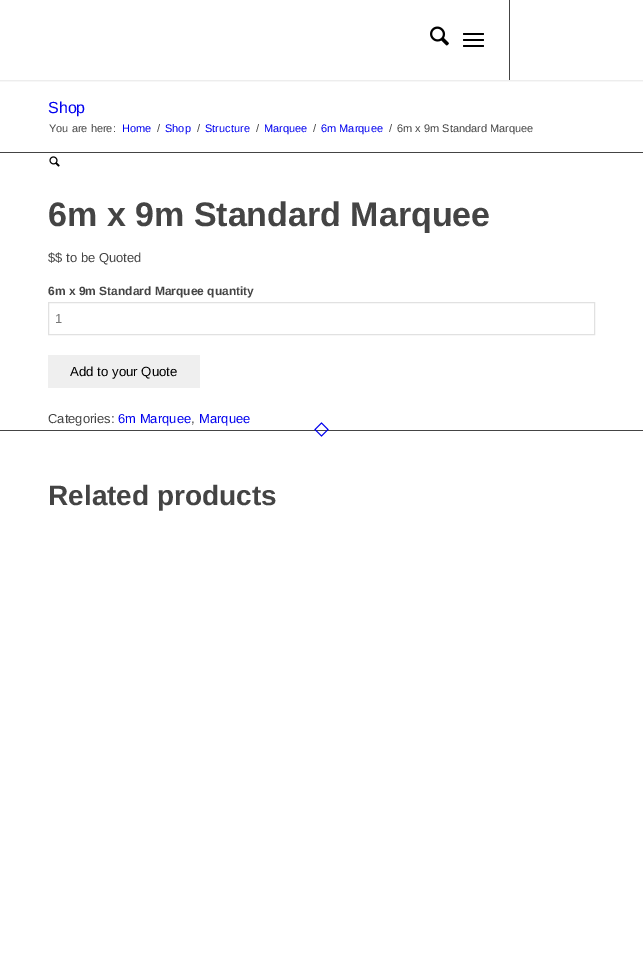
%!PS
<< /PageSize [643 956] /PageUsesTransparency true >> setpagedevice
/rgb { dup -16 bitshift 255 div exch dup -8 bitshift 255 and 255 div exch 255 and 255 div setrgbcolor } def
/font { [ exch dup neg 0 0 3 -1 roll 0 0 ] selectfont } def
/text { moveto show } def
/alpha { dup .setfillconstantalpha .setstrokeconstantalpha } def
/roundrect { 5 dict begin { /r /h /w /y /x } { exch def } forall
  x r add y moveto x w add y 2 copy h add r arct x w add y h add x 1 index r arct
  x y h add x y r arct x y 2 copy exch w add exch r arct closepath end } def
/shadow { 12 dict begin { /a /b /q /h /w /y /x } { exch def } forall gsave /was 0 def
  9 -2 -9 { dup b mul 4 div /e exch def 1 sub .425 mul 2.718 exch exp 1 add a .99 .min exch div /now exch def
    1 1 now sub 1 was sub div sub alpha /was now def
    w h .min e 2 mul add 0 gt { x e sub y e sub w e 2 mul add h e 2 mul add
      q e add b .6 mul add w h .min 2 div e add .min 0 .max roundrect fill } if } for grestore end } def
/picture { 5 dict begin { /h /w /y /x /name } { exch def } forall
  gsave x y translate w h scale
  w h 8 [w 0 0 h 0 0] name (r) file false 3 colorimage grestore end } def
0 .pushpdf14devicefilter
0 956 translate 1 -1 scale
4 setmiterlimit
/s1 { /LiberationSans-Regular 16 font 16#0000EE rgb } def
/s2 { /LiberationSans-Regular 11 font 16#444444 rgb } def
/s3 { /LiberationSans-Regular 11 font 16#0000EE rgb } def
/s4 { /LiberationSans-Bold 34 font 16#444444 rgb } def
/s5 { /LiberationSans-Regular 13 font 16#444444 rgb } def
/s6 { /LiberationSans-Bold 12 font 16#444444 rgb } def
/s7 { /LiberationSans-Regular 13 font 16#777777 rgb } def
/s8 { /LiberationSans-Regular 13.25 font 16#000000 rgb } def
/s9 { /LiberationSans-Regular 13 font 16#0000EE rgb } def
/s10 { /LiberationSans-Bold 28 font 16#444444 rgb } def
16#FFFFFF rgb
0 0 643 956 rectfill
gsave
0 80 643 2 rectclip
16#000000 rgb
-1 -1 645 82 0 1 0.1 shadow
grestore
16#444444 rgb
509 0 1 80 rectfill
(pic1.raw) 430 26 19 20 picture
16#000000 rgb
463 39 21 2 1 roundrect fill
463 33 21 2 1 roundrect fill
463 45 21 2 1 roundrect fill
s1
(Shop) 48 113 text
s2
(You are here:) 49 132 text
s3
(Home) 122 132 text
s2
(/) 157 132 text
s3
(Shop) 165 132 text
s2
(/) 197 132 text
s3
(Structure) 205 132 text
s2
(/) 256 132 text
s3
(Marquee) 264 132 text
s2
(/) 313 132 text
s3
(6m Marquee) 321 132 text
s2
(/) 389 132 text
(6m x 9m Standard Marquee) 397 132 text
0 152 643 1 rectfill
(pic2.raw) 49 156 11 11 picture
s4
(6m x 9m Standard Marquee) 48 226 text
s5
($$ to be Quoted) 48 262 text
s6
(6m x 9m Standard Marquee quantity) 48 295 text
16#E1E1E1 rgb
48.5 302.5 546 32 rectstroke
s7
(1) 55 323 text
16#EFEFEF rgb
48 355 152 33 rectfill
s8
(Add to your Quote) 70 376 text
s5
(Categories:) 48 423 text
s9
(6m Marquee) 118 423 text
s5
(,) 191 423 text
s9
(Marquee) 199 423 text
16#444444 rgb
0 430 643 1 rectfill
16#0000EE rgb
321.5 423 moveto 328 429.5 lineto 321.5 436 lineto 315 429.5 lineto closepath 321.5 423 moveto 328 429.5 lineto 321.5 436 lineto 315 429.5 lineto closepath 321.5 423 moveto 328 429.5 lineto 321.5 436 lineto 315 429.5 lineto closepath 321.5 423 moveto 328 429.5 lineto 321.5 436 lineto 315 429.5 lineto closepath stroke
s10
(Related products) 48 505 text
.poppdf14devicefilter showpage
